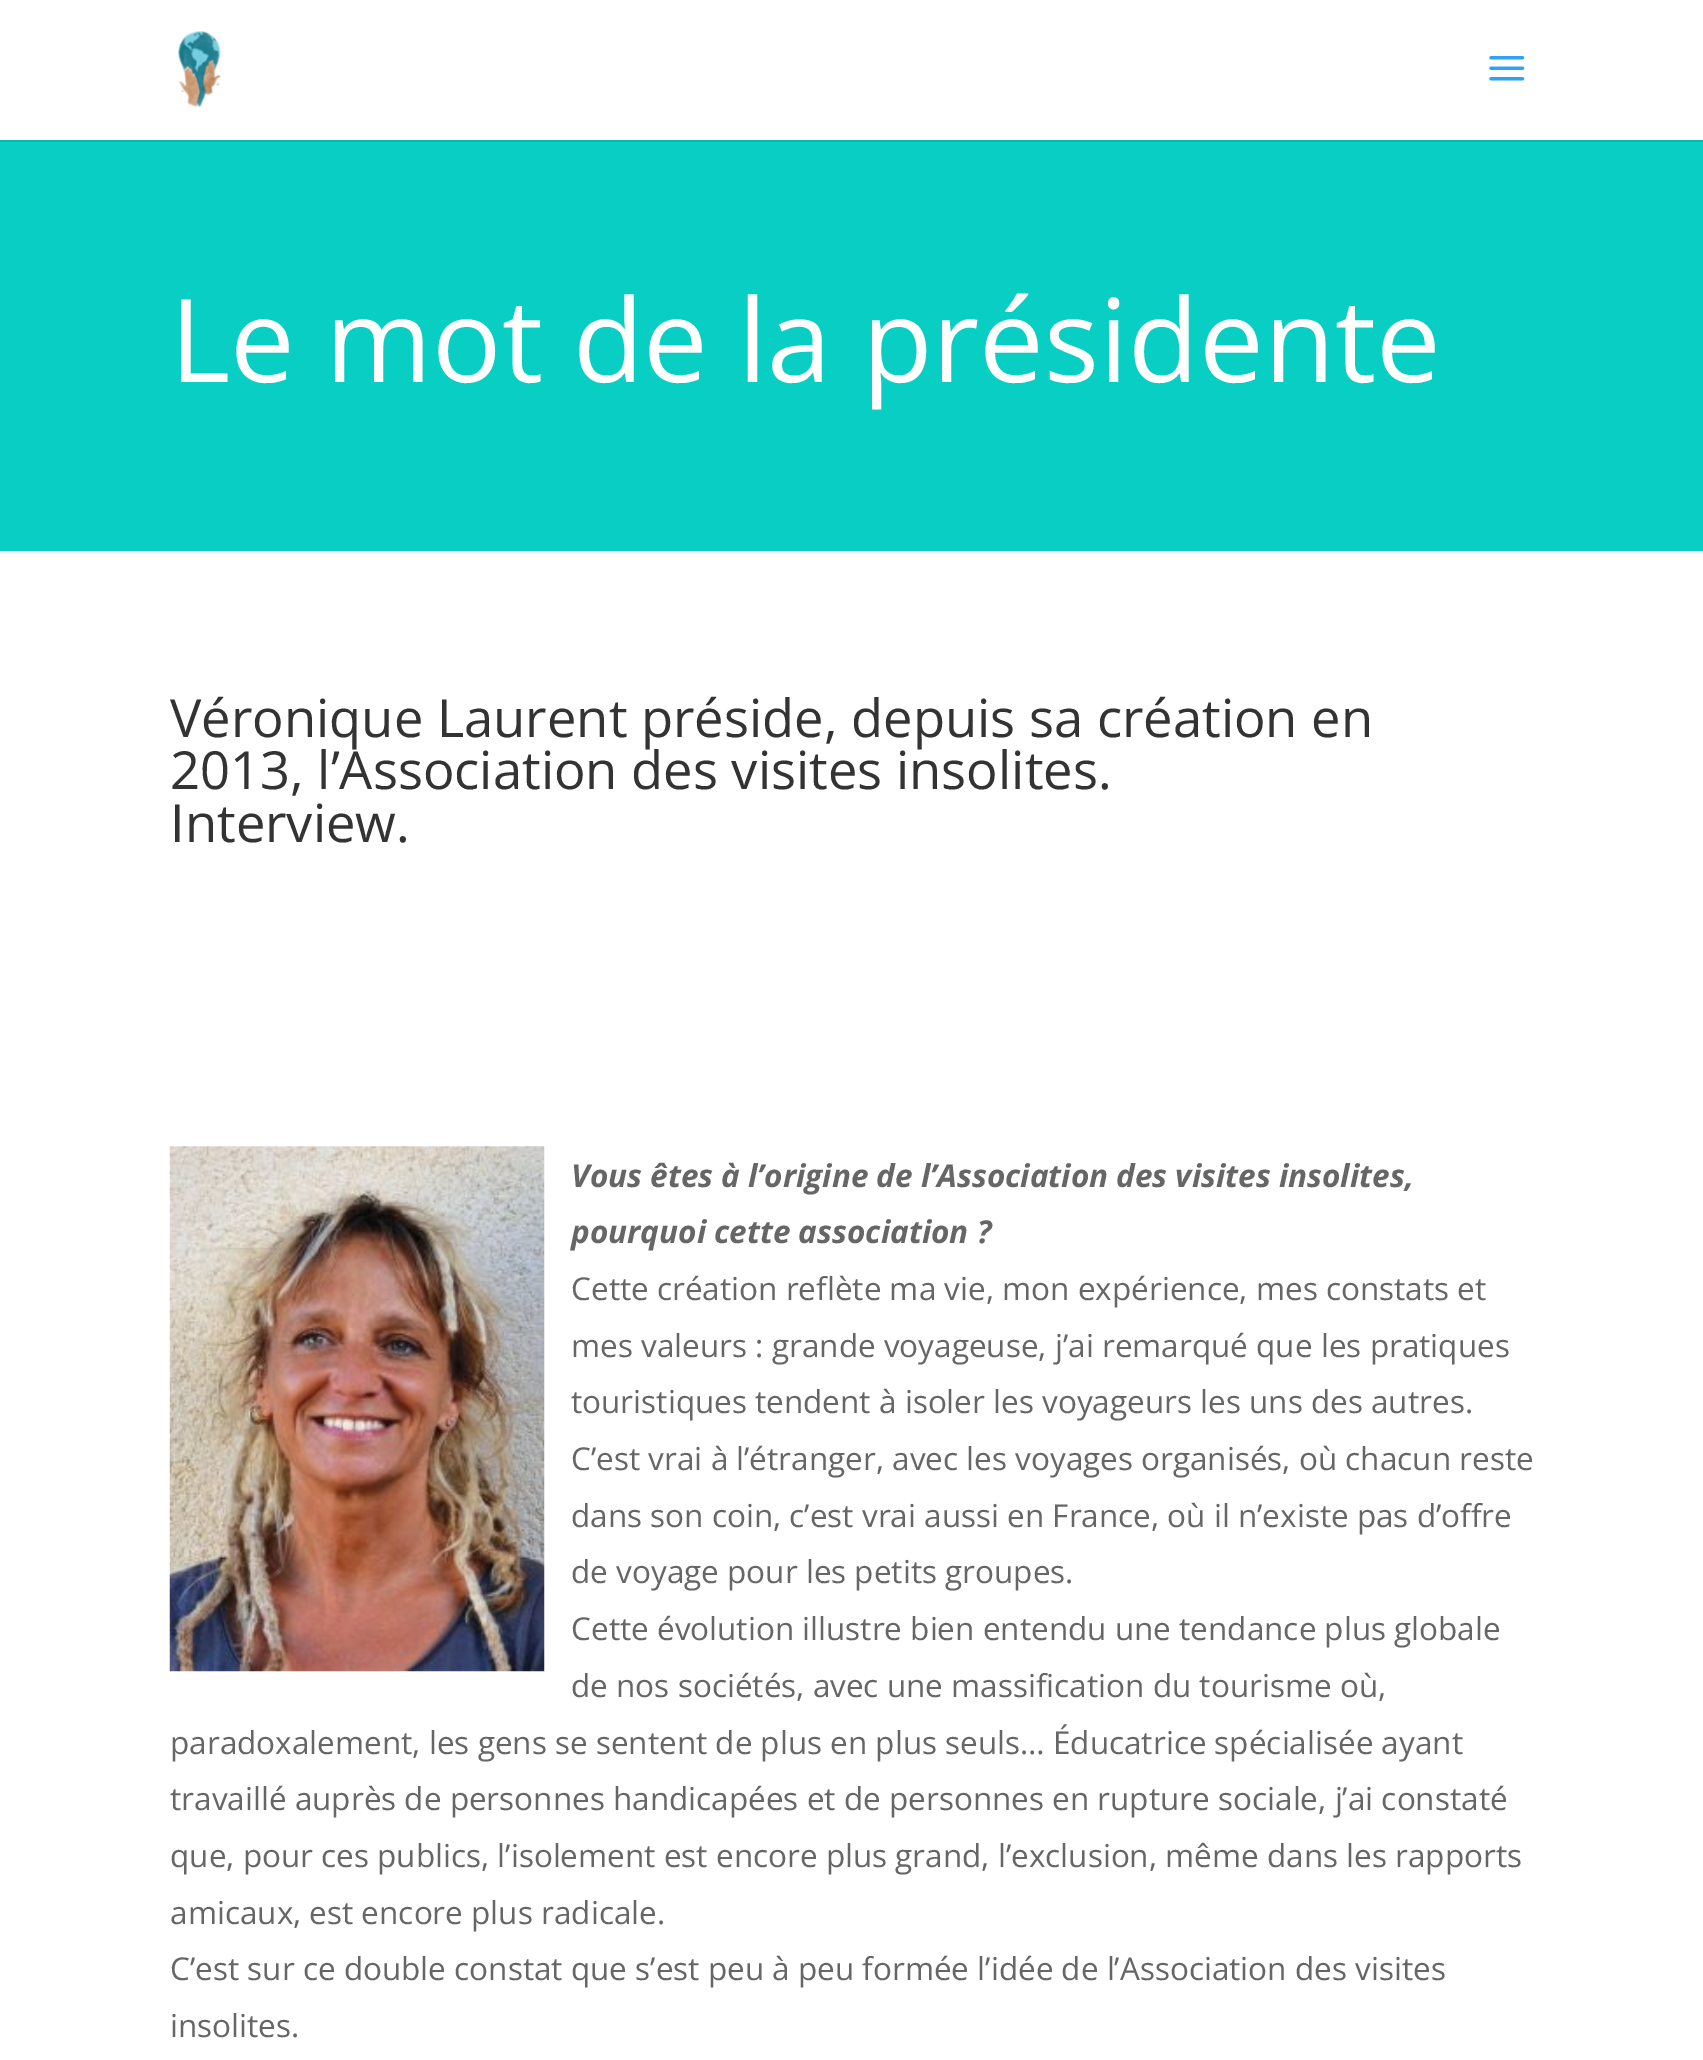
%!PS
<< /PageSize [1703 2060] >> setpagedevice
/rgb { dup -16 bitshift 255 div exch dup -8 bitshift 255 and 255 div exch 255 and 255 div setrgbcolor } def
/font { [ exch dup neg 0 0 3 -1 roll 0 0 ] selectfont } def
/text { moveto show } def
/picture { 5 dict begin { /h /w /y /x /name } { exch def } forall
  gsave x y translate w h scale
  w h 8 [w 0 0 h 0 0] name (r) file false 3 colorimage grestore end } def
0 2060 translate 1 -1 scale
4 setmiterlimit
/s1 { /OpenSans-Regular 115.5 font 16#FFFFFF rgb } def
/s2 { /OpenSans-Regular 52.5 font 16#333333 rgb } def
/s3 { /OpenSans-BoldItalic 31.5 font 16#666666 rgb } def
/s4 { /OpenSans-Regular 31.5 font 16#666666 rgb } def
16#FFFFFF rgb
0 0 1703 2060 rectfill
16#07B9B0 rgb
0 140 moveto 0 142 lineto 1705 142 lineto 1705 2 lineto 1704 2 lineto 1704 140 lineto closepath fill
(pic1.raw) 178 31 43 77 picture
(pic2.raw) 1489 56 36 25 picture
16#08CEC4 rgb
0 142 1703 409 rectfill
s1
(Le mot de la présidente) 170 382 text
s2
(Véronique Laurent préside, depuis sa création en) 170 737 text
(2013, l’Association des visites insolites.) 170 789 text
(Interview.) 170 842 text
(pic3.raw) 169 1146 376 526 picture
s3
(Vous êtes à l’origine de l’Association des visites insolites,) 571 1187 text
(pourquoi cette association ?) 571 1243 text
s4
(Cette création reflète ma vie, mon expérience, mes constats et) 571 1300 text
(mes valeurs : grande voyageuse, j’ai remarqué que les pratiques) 571 1357 text
(touristiques tendent à isoler les voyageurs les uns des autres.) 571 1413 text
(C’est vrai à l’étranger, avec les voyages organisés, où chacun reste) 571 1470 text
(dans son coin, c’est vrai aussi en France, où il n’existe pas d’offre) 571 1527 text
(de voyage pour les petits groupes.) 571 1583 text
(Cette évolution illustre bien entendu une tendance plus globale) 571 1640 text
(de nos sociétés, avec une massification du tourisme où,) 571 1697 text
(paradoxalement, les gens se sentent de plus en plus seuls… Éducatrice spécialisée ayant) 170 1754 text
(travaillé auprès de personnes handicapées et de personnes en rupture sociale, j’ai constaté) 170 1810 text
(que, pour ces publics, l’isolement est encore plus grand, l’exclusion, même dans les rapports) 170 1867 text
(amicaux, est encore plus radicale.) 170 1924 text
(C’est sur ce double constat que s’est peu à peu formée l’idée de l’Association des visites) 170 1980 text
(insolites.) 170 2037 text
showpage
